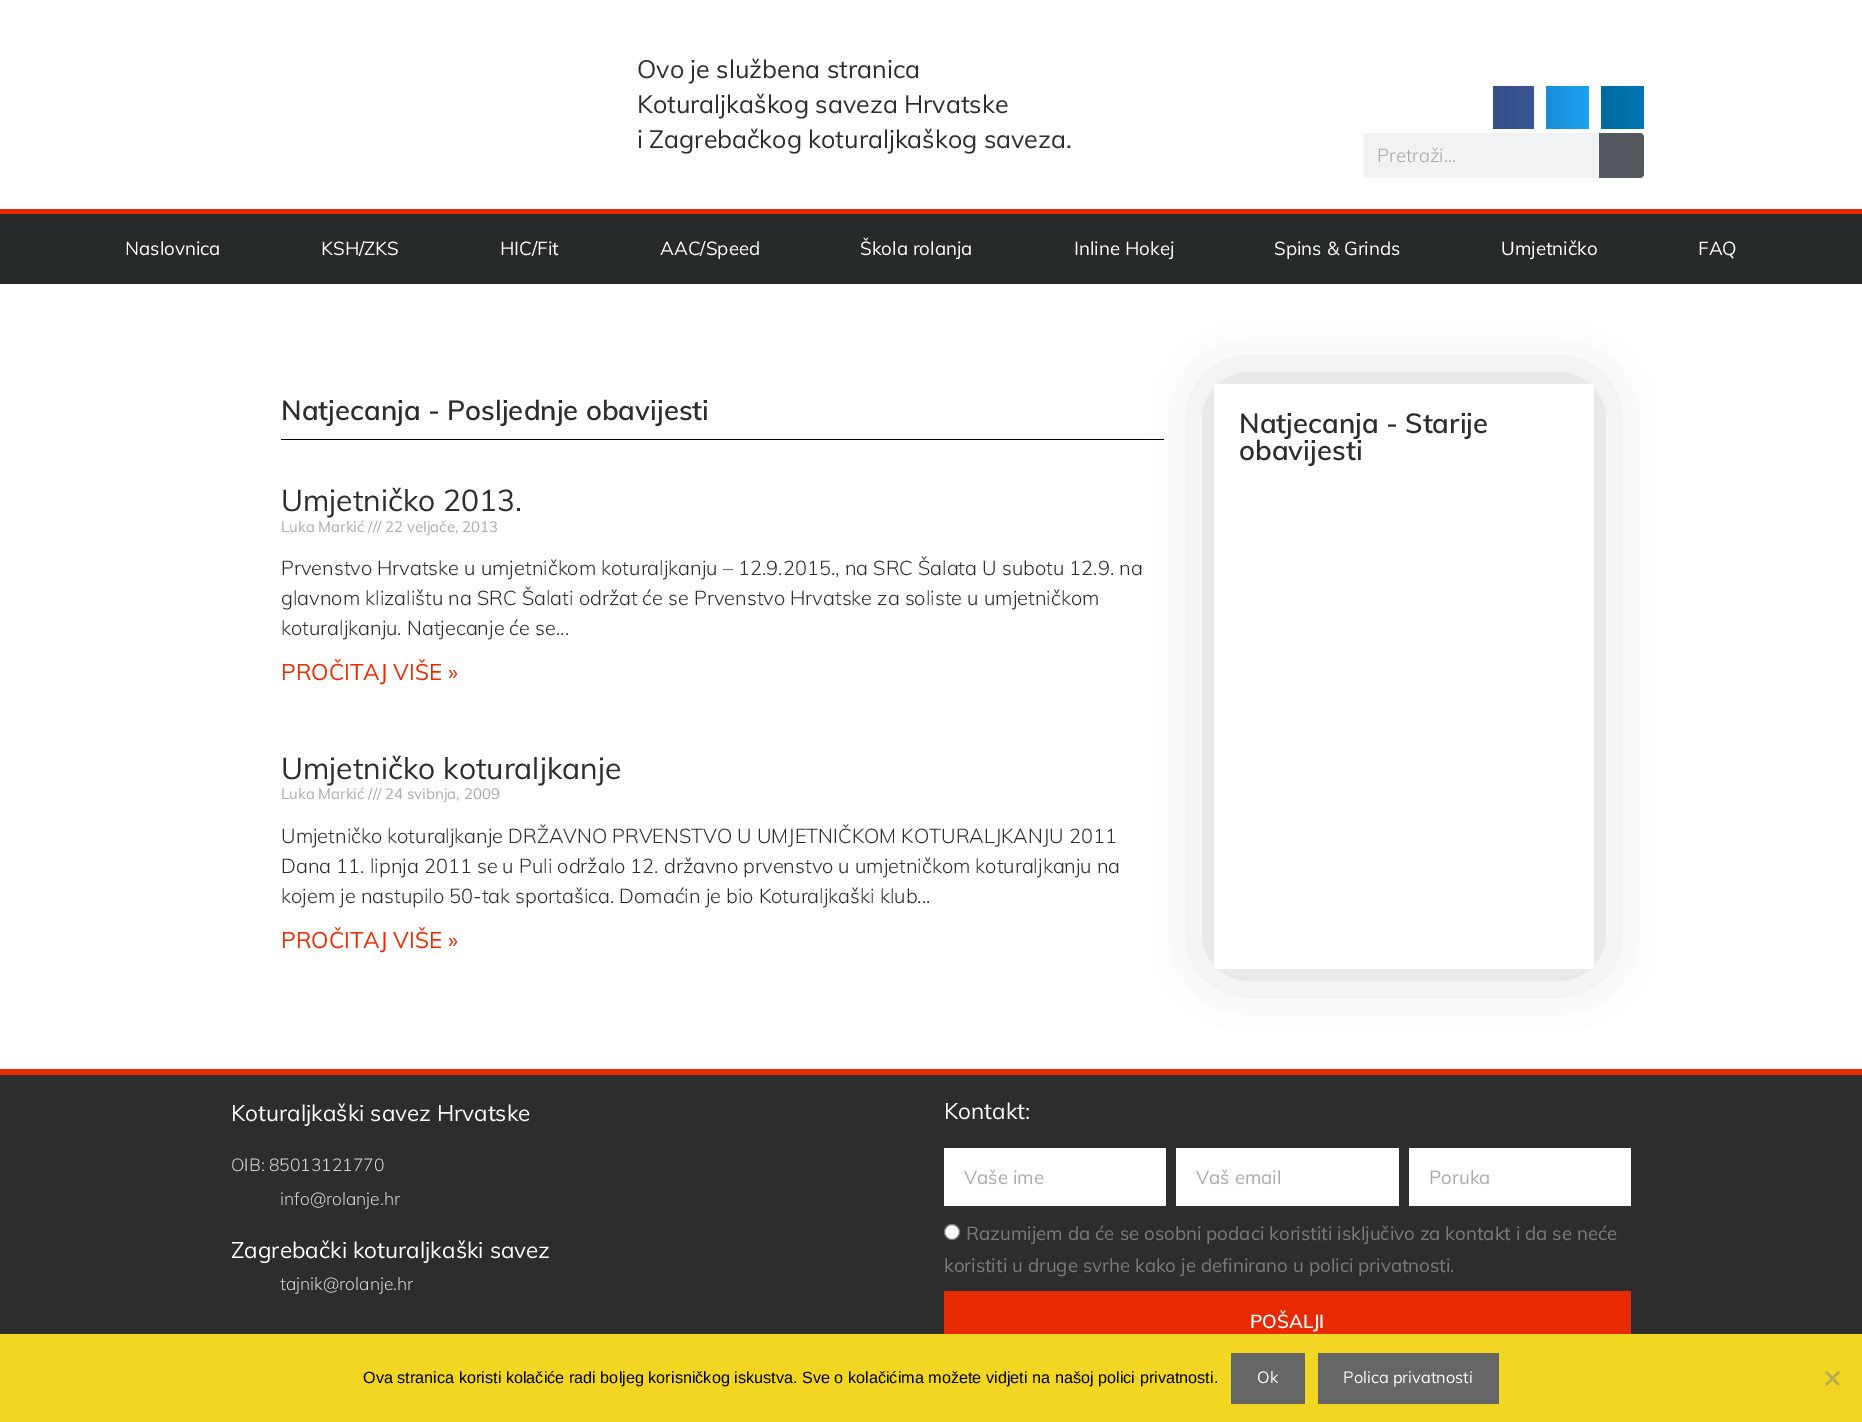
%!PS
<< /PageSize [1862 1422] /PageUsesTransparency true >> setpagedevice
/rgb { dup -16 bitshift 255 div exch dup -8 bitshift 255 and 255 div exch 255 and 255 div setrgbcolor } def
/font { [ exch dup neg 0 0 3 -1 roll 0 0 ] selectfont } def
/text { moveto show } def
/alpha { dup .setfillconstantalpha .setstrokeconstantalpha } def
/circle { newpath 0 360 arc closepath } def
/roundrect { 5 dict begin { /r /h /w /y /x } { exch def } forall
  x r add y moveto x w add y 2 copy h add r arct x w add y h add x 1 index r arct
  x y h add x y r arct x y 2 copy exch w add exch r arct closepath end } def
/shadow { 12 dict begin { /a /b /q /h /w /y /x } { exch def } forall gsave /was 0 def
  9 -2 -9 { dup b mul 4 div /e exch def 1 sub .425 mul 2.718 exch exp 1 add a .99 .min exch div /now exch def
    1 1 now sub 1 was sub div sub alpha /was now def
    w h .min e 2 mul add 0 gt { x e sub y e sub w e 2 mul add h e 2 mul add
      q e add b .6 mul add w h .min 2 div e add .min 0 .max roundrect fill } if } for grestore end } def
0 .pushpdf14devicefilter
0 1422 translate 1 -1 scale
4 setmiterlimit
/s1 { /Muli-Regular 25 font 16#2D2D2D rgb } def
/s2 { /Muli-Light 18.75 font 16#AAAAAA rgb } def
/s3 { /Muli-Regular 18.75 font 16#FFFFFF rgb } def
/s4 { /Muli-SemiBold 27.5 font 16#2D2D2D rgb } def
/s5 { /Muli-Regular 30 font 16#2D2D2D rgb } def
/s6 { /Muli-Regular 15 font 16#AAAAAA rgb } def
/s7 { /Muli-Light 20 font 16#2D2D2D rgb } def
/s8 { /Muli-Regular 22.5 font 16#E82A00 rgb } def
/s9 { /Muli-Regular 22.5 font 16#FFFFFF rgb } def
/s10 { /Muli-Light 17.5 font 16#D3D3D3 rgb } def
/s11 { /Muli-Regular 18.75 font 16#AAAAAA rgb } def
/s12 { /Muli-Regular 18.75 font 16#7A7A7A rgb } def
/s13 { /Muli-SemiBold 18.75 font 16#FFFFFF rgb } def
/s14 { /LiberationSans-Regular 16.25 font 16#000000 rgb } def
/s15 { /Muli-Regular 16.25 font 16#FFFFFF rgb } def
16#FFFFFF rgb
0 0 1862 1422 rectfill
s1
(Ovo je službena stranica) 637 78 text
(Koturaljkaškog saveza Hrvatske) 637 113 text
(i Zagrebačkog koturaljkaškog saveza.) 637 148 text
gsave 1493 86 moveto 1534 86 lineto 1534 129 lineto 1493 129 lineto closepath clip newpath
<< /ShadingType 2 /ColorSpace /DeviceRGB /Coords [1493 108 1534 108] /Extend [true true] /Function << /FunctionType 2 /Domain [0 1] /C0 [0.204 0.306 0.525] /C1 [0.231 0.349 0.596] /N 1 >> >> shfill grestore
gsave 1546 86 moveto 1589 86 lineto 1589 129 lineto 1546 129 lineto closepath clip newpath
<< /ShadingType 2 /ColorSpace /DeviceRGB /Coords [1546 108 1589 108] /Extend [true true] /Function << /FunctionType 2 /Domain [0 1] /C0 [0.102 0.557 0.835] /C1 [0.114 0.631 0.949] /N 1 >> >> shfill grestore
gsave 1601 86 moveto 1644 86 lineto 1644 129 lineto 1601 129 lineto closepath clip newpath
<< /ShadingType 2 /ColorSpace /DeviceRGB /Coords [1601 108 1644 108] /Extend [true true] /Function << /FunctionType 2 /Domain [0 1] /C0 [0 0.412 0.624] /C1 [0 0.467 0.71] /N 1 >> >> shfill grestore
16#F1F2F3 rgb
1363 133 281 45 4 roundrect fill
s2
(Pretraži...) 1377 162 text
16#54595F rgb
1599 133 moveto 1640 133 lineto 1642 133 1644 135 1644 137 curveto 1644 174 lineto 1644 176 1642 178 1640 178 curveto 1599 178 lineto closepath fill
16#262A2B rgb
0 214 1862 70 rectfill
16#E82A00 rgb
0 209 1862 5 rectfill
s3
(Naslovnica) 125 255 text
(KSH/ZKS) 321 255 text
(HIC/Fit) 500 255 text
(AAC/Speed) 660 255 text
(Škola rolanja) 860 255 text
(Inline Hokej) 1074 255 text
(Spins & Grinds) 1274 255 text
(Umjetničko) 1501 255 text
(FAQ) 1698 255 text
s4
(Natjecanja - Posljednje obavijesti) 281 420 text
16#000000 rgb
281 439 883 1 rectfill
s5
(Umjetničko 2013.) 281 511 text
s6
(Luka Markić /// 22 veljače, 2013) 281 532 text
s7
(Prvenstvo Hrvatske u umjetničkom koturaljkanju – 12.9.2015., na SRC Šalata U subotu 12.9. na) 281 575 text
(glavnom klizalištu na SRC Šalati održat će se Prvenstvo Hrvatske za soliste u umjetničkom) 281 605 text
(koturaljkanju. Natjecanje će se...) 281 635 text
s8
(PROČITAJ VIŠE ») 281 680 text
s5
(Umjetničko koturaljkanje) 281 779 text
s6
(Luka Markić /// 24 svibnja, 2009) 281 799 text
s7
(Umjetničko koturaljkanje DRŽAVNO PRVENSTVO U UMJETNIČKOM KOTURALJKANJU 2011) 281 843 text
(Dana 11. lipnja 2011 se u Puli održalo 12. državno prvenstvo u umjetničkom koturaljkanju na) 281 873 text
(kojem je nastupilo 50-tak sportašica. Domaćin je bio Koturaljkaški klub...) 281 903 text
s8
(PROČITAJ VIŠE ») 281 948 text
gsave
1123 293 moveto 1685 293 lineto 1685 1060 lineto 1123 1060 lineto closepath 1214 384 moveto 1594 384 lineto 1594 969 lineto 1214 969 lineto closepath eoclip newpath
16#000000 rgb
1228 398 352 557 0 34.5 0.29 shadow
grestore
s4
(Natjecanja - Starije) 1239 433 text
(obavijesti) 1239 460 text
0 1075 1862 259 rectfill
16#E82A00 rgb
0 1069 1862 6 rectfill
s9
(Koturaljkaški savez Hrvatske) 231 1121 text
s10
(OIB: 85013121770) 231 1171 text
(info@rolanje.hr) 280 1205 text
s9
(Zagrebački koturaljkaški savez) 231 1258 text
s10
(tajnik@rolanje.hr) 280 1290 text
s9
(Kontakt:) 944 1119 text
944 1148 222 58 rectfill
s11
(Vaše ime) 964 1184 text
16#FFFFFF rgb
1176 1148 223 58 rectfill
s11
(Vaš email) 1196 1184 text
16#FFFFFF rgb
1409 1148 222 58 rectfill
s11
(Poruka) 1429 1184 text
16#FFFFFF rgb
952 1232 7.5 circle gsave fill grestore
16#767676 rgb
stroke
s12
(Razumijem da će se osobni podaci koristiti isključivo za kontakt i da se neće) 966 1240 text
(koristiti u druge svrhe kako je definirano u polici privatnosti.) 944 1272 text
16#E82A00 rgb
944 1291 687 43 rectfill
s13
(POŠALJI) 1250 1328 text
16#F2D621 rgb
0 1334 1862 88 rectfill
s14
(Ova stranica koristi kolačiće radi boljeg korisničkog iskustva. Sve o kolačićima možete vidjeti na našoj polici privatnosti.) 363 1383 text
16#666666 rgb
1231 1353 74 51 rectfill
s15
(Ok) 1257 1383 text
16#666666 rgb
1318 1353 181 51 rectfill
s15
(Polica privatnosti) 1343 1383 text
16#B9AB51 rgb
1838 1371 moveto 1840 1372.5 lineto 1827 1386 lineto 1825 1384 lineto closepath fill
1825 1372.5 moveto 1827 1371 lineto 1840 1384 lineto 1838 1386 lineto closepath fill
.poppdf14devicefilter showpage
